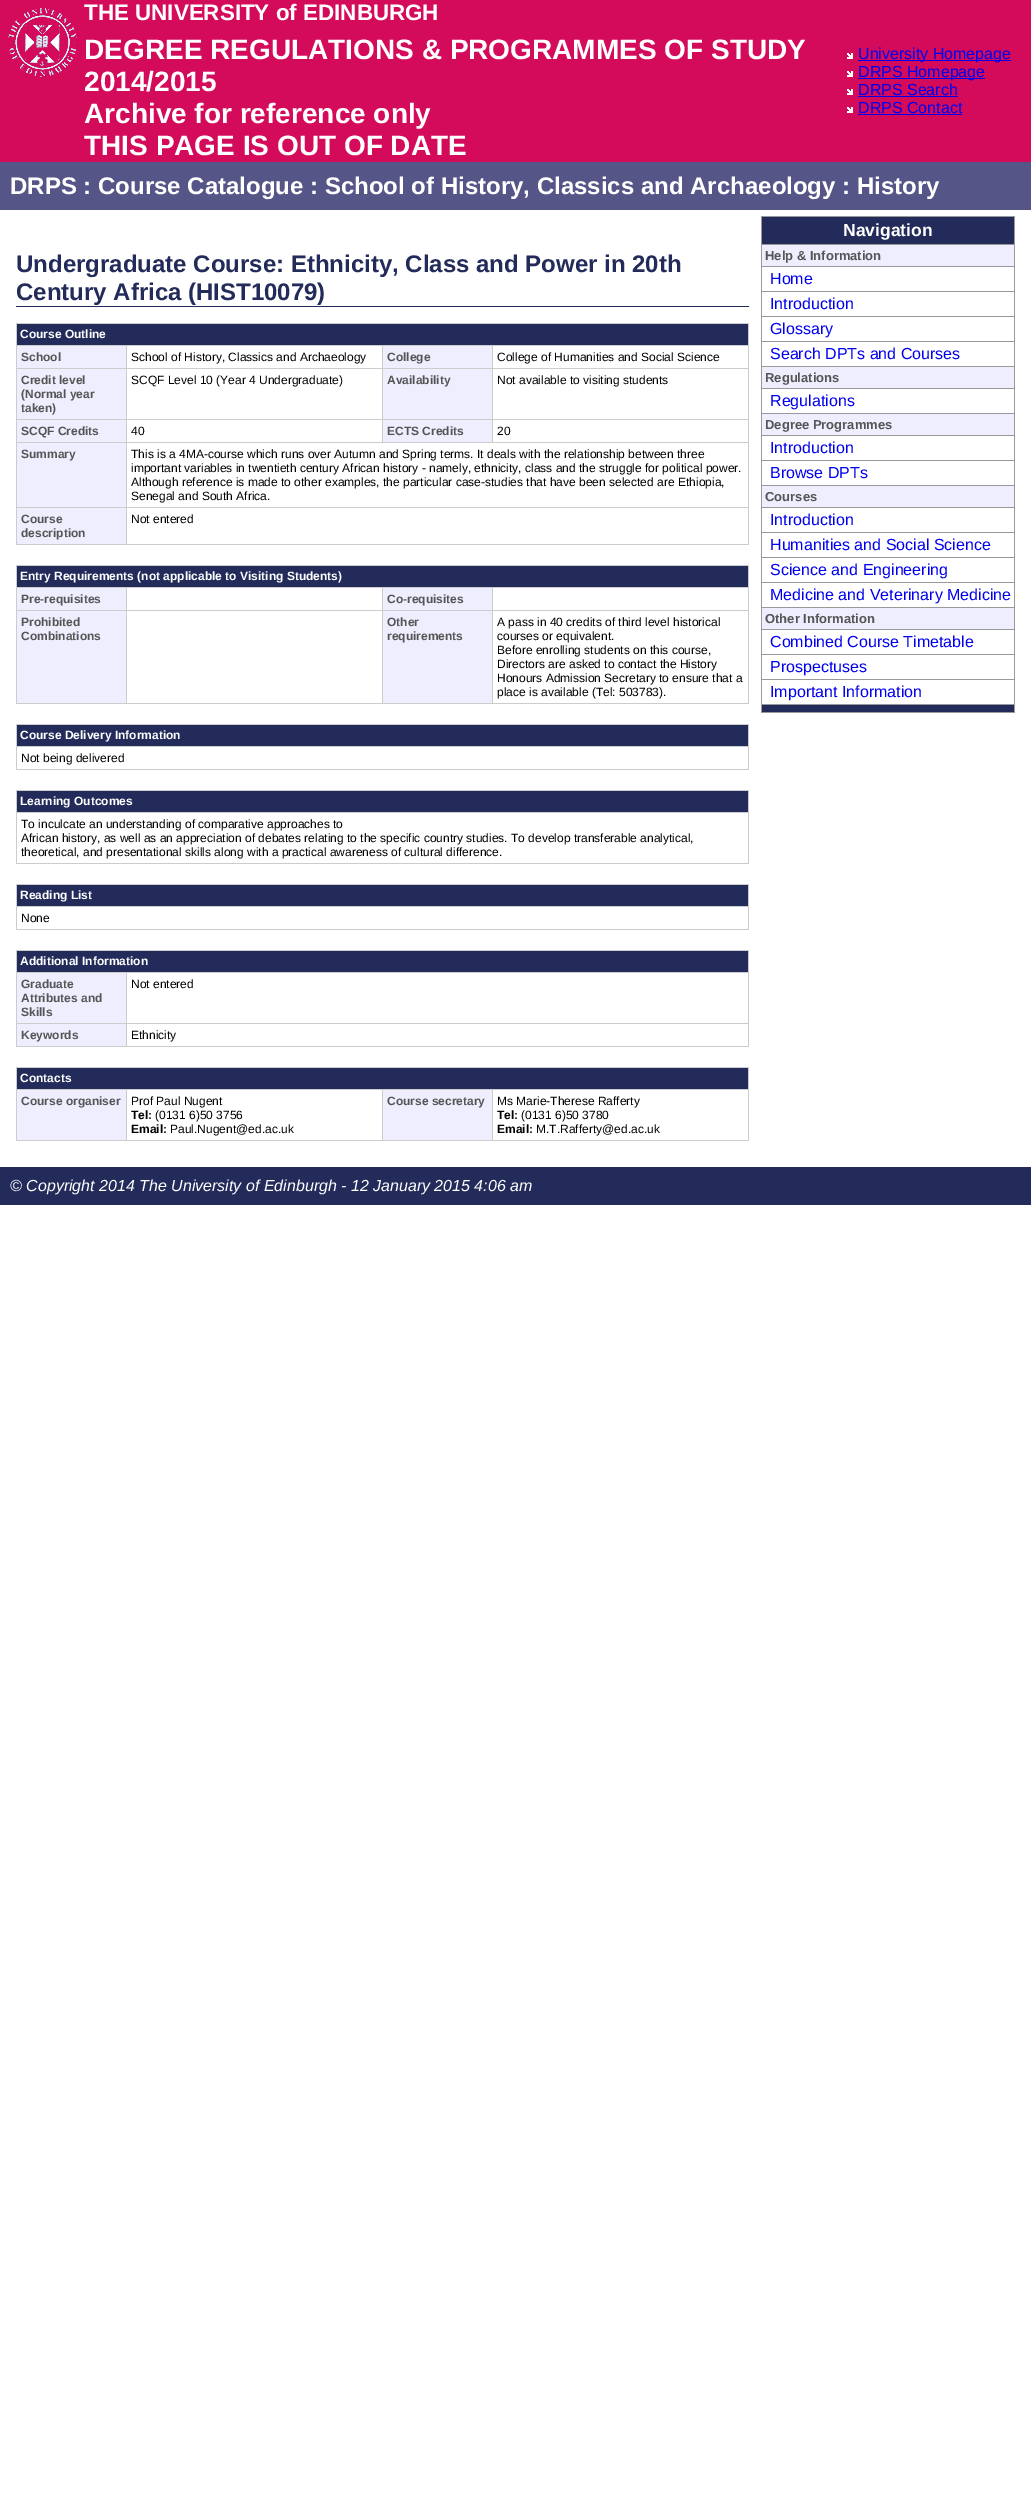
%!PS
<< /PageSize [1031 2510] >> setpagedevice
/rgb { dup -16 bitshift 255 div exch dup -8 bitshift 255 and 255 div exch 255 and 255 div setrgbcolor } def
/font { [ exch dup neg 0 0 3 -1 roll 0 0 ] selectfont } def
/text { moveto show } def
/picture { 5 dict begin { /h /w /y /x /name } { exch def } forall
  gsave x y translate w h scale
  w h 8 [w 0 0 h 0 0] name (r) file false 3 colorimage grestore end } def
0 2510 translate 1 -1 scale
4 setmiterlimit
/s1 { /LiberationSans-Bold 22.4 font 16#FFFFFF rgb } def
/s2 { /LiberationSans-Bold 28 font 16#FFFFFF rgb } def
/s3 { /LiberationSans-Regular 16 font 16#0000EE rgb } def
/s4 { /LiberationSans-Bold 24 font 16#FFFFFF rgb } def
/s5 { /LiberationSans-Bold 24 font 16#232B5A rgb } def
/s6 { /LiberationSans-Bold 12 font 16#FFFFFF rgb } def
/s7 { /LiberationSans-Bold 12 font 16#555555 rgb } def
/s8 { /LiberationSans-Regular 12 font 16#000000 rgb } def
/s9 { /LiberationSans-Bold 12 font 16#000000 rgb } def
/s10 { /LiberationSans-Bold 17.5 font 16#FFFFFF rgb } def
/s11 { /LiberationSans-Bold 13 font 16#555555 rgb } def
/s12 { /LiberationSans-Italic 16 font 16#FFFFFF rgb } def
16#FFFFFF rgb
0 0 1031 2510 rectfill
16#D30B5A rgb
0 0 1031 162 rectfill
(pic1.raw) 8 8 69 69 picture
s1
(THE UNIVERSITY of EDINBURGH) 84 20 text
s2
(DEGREE REGULATIONS & PROGRAMMES OF STUDY) 84 59 text
(2014/2015) 84 91 text
(Archive for reference only) 84 123 text
(THIS PAGE IS OUT OF DATE) 84 155 text
(pic2.raw) 847 53 6 6 picture
16#0000EE rgb
858 60 153 1 rectfill
s3
(University Homepage) 858 59 text
(pic2.raw) 847 71 6 6 picture
858 78 127 1 rectfill
(DRPS Homepage) 858 77 text
(pic2.raw) 847 89 6 6 picture
(DRPS Search) 858 95 text
858 96 100 1 rectfill
(pic2.raw) 847 107 6 6 picture
(DRPS Contact) 858 113 text
858 114 104 1 rectfill
16#555588 rgb
0 162 1031 48 rectfill
s4
(DRPS : Course Catalogue : School of History, Classics and Archaeology : History) 10 194 text
16#232B5A rgb
16 306 733 1 rectfill
(Undergraduate Course: Ethnicity, Class and Power in 20th) 16 272 text
(Century Africa \(HIST10079\)) 16 300 text
16#CCCCCC rgb
16 323 733 1 rectfill
748 323 1 222 rectfill
16 544 733 1 rectfill
16 323 1 222 rectfill
16#232B5A rgb
17 324 731 21 rectfill
s6
(Course Outline) 20 338 text
16#EEEEFF rgb
17 346 109 22 rectfill
16#CCCCCC rgb
492 345 257 1 rectfill
492 368 257 1 rectfill
492 419 257 1 rectfill
126 442 623 1 rectfill
492 419 1 24 rectfill
382 419 111 1 rectfill
492 368 1 52 rectfill
382 368 111 1 rectfill
492 345 1 24 rectfill
382 345 111 1 rectfill
382 419 1 24 rectfill
126 419 257 1 rectfill
382 368 1 52 rectfill
126 368 257 1 rectfill
382 345 1 24 rectfill
126 345 257 1 rectfill
126 507 623 1 rectfill
126 507 1 38 rectfill
16 507 111 1 rectfill
126 442 1 66 rectfill
16 442 111 1 rectfill
126 419 1 24 rectfill
16 419 111 1 rectfill
126 368 1 52 rectfill
16 368 111 1 rectfill
126 345 1 24 rectfill
16 345 111 1 rectfill
s7
(School) 21 361 text
s8
(School of History, Classics and Archaeology) 131 361 text
16#EEEEFF rgb
383 346 109 22 rectfill
s7
(College) 387 361 text
s8
(College of Humanities and Social Science) 497 361 text
16#EEEEFF rgb
17 369 109 50 rectfill
s7
(Credit level) 21 384 text
(\(Normal year) 21 398 text
(taken\)) 21 412 text
s8
(SCQF Level 10 \(Year 4 Undergraduate\)) 131 384 text
16#EEEEFF rgb
383 369 109 50 rectfill
s7
(Availability) 387 384 text
s8
(Not available to visiting students) 497 384 text
16#EEEEFF rgb
17 420 109 22 rectfill
s7
(SCQF Credits) 21 435 text
s8
(40) 131 435 text
16#EEEEFF rgb
383 420 109 22 rectfill
s7
(ECTS Credits) 387 435 text
s8
(20) 497 435 text
16#EEEEFF rgb
17 443 109 64 rectfill
s7
(Summary) 21 458 text
s8
(This is a 4MA-course which runs over Autumn and Spring terms. It deals with the relationship between three) 131 458 text
(important variables in twentieth century African history - namely, ethnicity, class and the struggle for political power.) 131 472 text
(Although reference is made to other examples, the particular case-studies that have been selected are Ethiopia,) 131 486 text
(Senegal and South Africa.) 131 500 text
16#EEEEFF rgb
17 508 109 36 rectfill
s7
(Course) 21 523 text
(description) 21 537 text
s8
(Not entered) 131 523 text
16#CCCCCC rgb
16 565 733 1 rectfill
748 565 1 139 rectfill
16 703 733 1 rectfill
16 565 1 139 rectfill
16#232B5A rgb
17 566 731 21 rectfill
s6
(Entry Requirements \(not applicable to Visiting Students\)) 20 580 text
16#EEEEFF rgb
17 588 109 22 rectfill
16#CCCCCC rgb
492 587 257 1 rectfill
492 610 257 1 rectfill
492 610 1 94 rectfill
382 610 111 1 rectfill
492 587 1 24 rectfill
382 587 111 1 rectfill
382 610 1 94 rectfill
126 610 257 1 rectfill
382 587 1 24 rectfill
126 587 257 1 rectfill
126 610 1 94 rectfill
16 610 111 1 rectfill
126 587 1 24 rectfill
16 587 111 1 rectfill
s7
(Pre-requisites) 21 603 text
16#EEEEFF rgb
383 588 109 22 rectfill
s7
(Co-requisites) 387 603 text
16#EEEEFF rgb
17 611 109 92 rectfill
s7
(Prohibited) 21 626 text
(Combinations) 21 640 text
16#EEEEFF rgb
383 611 109 92 rectfill
s7
(Other) 387 626 text
(requirements) 387 640 text
s8
(A pass in 40 credits of third level historical) 497 626 text
(courses or equivalent.) 497 640 text
(Before enrolling students on this course,) 497 654 text
(Directors are asked to contact the History) 497 668 text
(Honours Admission Secretary to ensure that a) 497 682 text
(place is available \(Tel: 503783\).) 497 696 text
16#CCCCCC rgb
16 724 733 1 rectfill
748 724 1 46 rectfill
16 769 733 1 rectfill
16 724 1 46 rectfill
16#232B5A rgb
17 725 731 21 rectfill
s6
(Course Delivery Information) 20 739 text
16#CCCCCC rgb
16 746 733 1 rectfill
s8
(Not being delivered) 21 762 text
16#CCCCCC rgb
16 790 733 1 rectfill
748 790 1 74 rectfill
16 863 733 1 rectfill
16 790 1 74 rectfill
16#232B5A rgb
17 791 731 21 rectfill
s6
(Learning Outcomes) 20 805 text
16#CCCCCC rgb
16 812 733 1 rectfill
s8
(To inculcate an understanding of comparative approaches to) 21 828 text
(African history, as well as an appreciation of debates relating to the specific country studies. To develop transferable analytical,) 21 842 text
(theoretical, and presentational skills along with a practical awareness of cultural difference.) 21 856 text
16#CCCCCC rgb
16 884 733 1 rectfill
748 884 1 46 rectfill
16 929 733 1 rectfill
16 884 1 46 rectfill
16#232B5A rgb
17 885 731 21 rectfill
s6
(Reading List) 20 899 text
16#CCCCCC rgb
16 906 733 1 rectfill
s8
(None) 21 922 text
16#CCCCCC rgb
16 950 733 1 rectfill
748 950 1 97 rectfill
16 1046 733 1 rectfill
16 950 1 97 rectfill
16#232B5A rgb
17 951 731 21 rectfill
s6
(Additional Information) 20 965 text
16#EEEEFF rgb
17 973 109 50 rectfill
16#CCCCCC rgb
126 972 623 1 rectfill
126 1023 623 1 rectfill
126 1023 1 24 rectfill
16 1023 111 1 rectfill
126 972 1 52 rectfill
16 972 111 1 rectfill
s7
(Graduate) 21 988 text
(Attributes and) 21 1002 text
(Skills) 21 1016 text
s8
(Not entered) 131 988 text
16#EEEEFF rgb
17 1024 109 22 rectfill
s7
(Keywords) 21 1039 text
s8
(Ethnicity) 131 1039 text
16#CCCCCC rgb
16 1067 733 1 rectfill
748 1067 1 74 rectfill
16 1140 733 1 rectfill
16 1067 1 74 rectfill
16#232B5A rgb
17 1068 731 21 rectfill
s6
(Contacts) 20 1082 text
16#EEEEFF rgb
17 1090 109 50 rectfill
16#CCCCCC rgb
492 1089 257 1 rectfill
492 1089 1 52 rectfill
382 1089 111 1 rectfill
382 1089 1 52 rectfill
126 1089 257 1 rectfill
126 1089 1 52 rectfill
16 1089 111 1 rectfill
s7
(Course organiser) 21 1105 text
s8
(Prof Paul Nugent) 131 1105 text
s9
(Tel:) 131 1119 text
s8
(\(0131 6\)50 3756) 155 1119 text
s9
(Email:) 131 1133 text
s8
(Paul.Nugent@ed.ac.uk) 170 1133 text
16#EEEEFF rgb
383 1090 109 50 rectfill
s7
(Course secretary) 387 1105 text
s8
(Ms Marie-Therese Rafferty) 497 1105 text
s9
(Tel:) 497 1119 text
s8
(\(0131 6\)50 3780) 521 1119 text
s9
(Email:) 497 1133 text
s8
(M.T.Rafferty@ed.ac.uk) 536 1133 text
16#999999 rgb
761 216 254 497 rectfill
16#232B5A rgb
762 217 252 27 rectfill
s10
(Navigation) 843 236 text
16#EEEEFF rgb
762 245 252 21 rectfill
s11
(Help & Information) 765 260 text
16#FFFFFF rgb
762 267 252 24 rectfill
s3
(Home) 770 284 text
16#FFFFFF rgb
762 292 252 24 rectfill
s3
(Introduction) 770 309 text
16#FFFFFF rgb
762 317 252 24 rectfill
s3
(Glossary) 770 334 text
16#FFFFFF rgb
762 342 252 24 rectfill
s3
(Search DPTs and Courses) 770 359 text
16#EEEEFF rgb
762 367 252 21 rectfill
s11
(Regulations) 765 382 text
16#FFFFFF rgb
762 389 252 24 rectfill
s3
(Regulations) 770 406 text
16#EEEEFF rgb
762 414 252 21 rectfill
s11
(Degree Programmes) 765 429 text
16#FFFFFF rgb
762 436 252 24 rectfill
s3
(Introduction) 770 453 text
16#FFFFFF rgb
762 461 252 24 rectfill
s3
(Browse DPTs) 770 478 text
16#EEEEFF rgb
762 486 252 21 rectfill
s11
(Courses) 765 501 text
16#FFFFFF rgb
762 508 252 24 rectfill
s3
(Introduction) 770 525 text
16#FFFFFF rgb
762 533 252 24 rectfill
s3
(Humanities and Social Science) 770 550 text
16#FFFFFF rgb
762 558 252 24 rectfill
s3
(Science and Engineering) 770 575 text
16#FFFFFF rgb
762 583 252 24 rectfill
s3
(Medicine and Veterinary Medicine) 770 600 text
16#EEEEFF rgb
762 608 252 21 rectfill
s11
(Other Information) 765 623 text
16#FFFFFF rgb
762 630 252 24 rectfill
s3
(Combined Course Timetable) 770 647 text
16#FFFFFF rgb
762 655 252 24 rectfill
s3
(Prospectuses) 770 672 text
16#FFFFFF rgb
762 680 252 24 rectfill
s3
(Important Information) 770 697 text
16#232B5A rgb
762 705 252 7 rectfill
0 1167 1031 38 rectfill
s12
(© Copyright 2014 The University of Edinburgh - 12 January 2015 4:06 am) 10 1191 text
showpage
